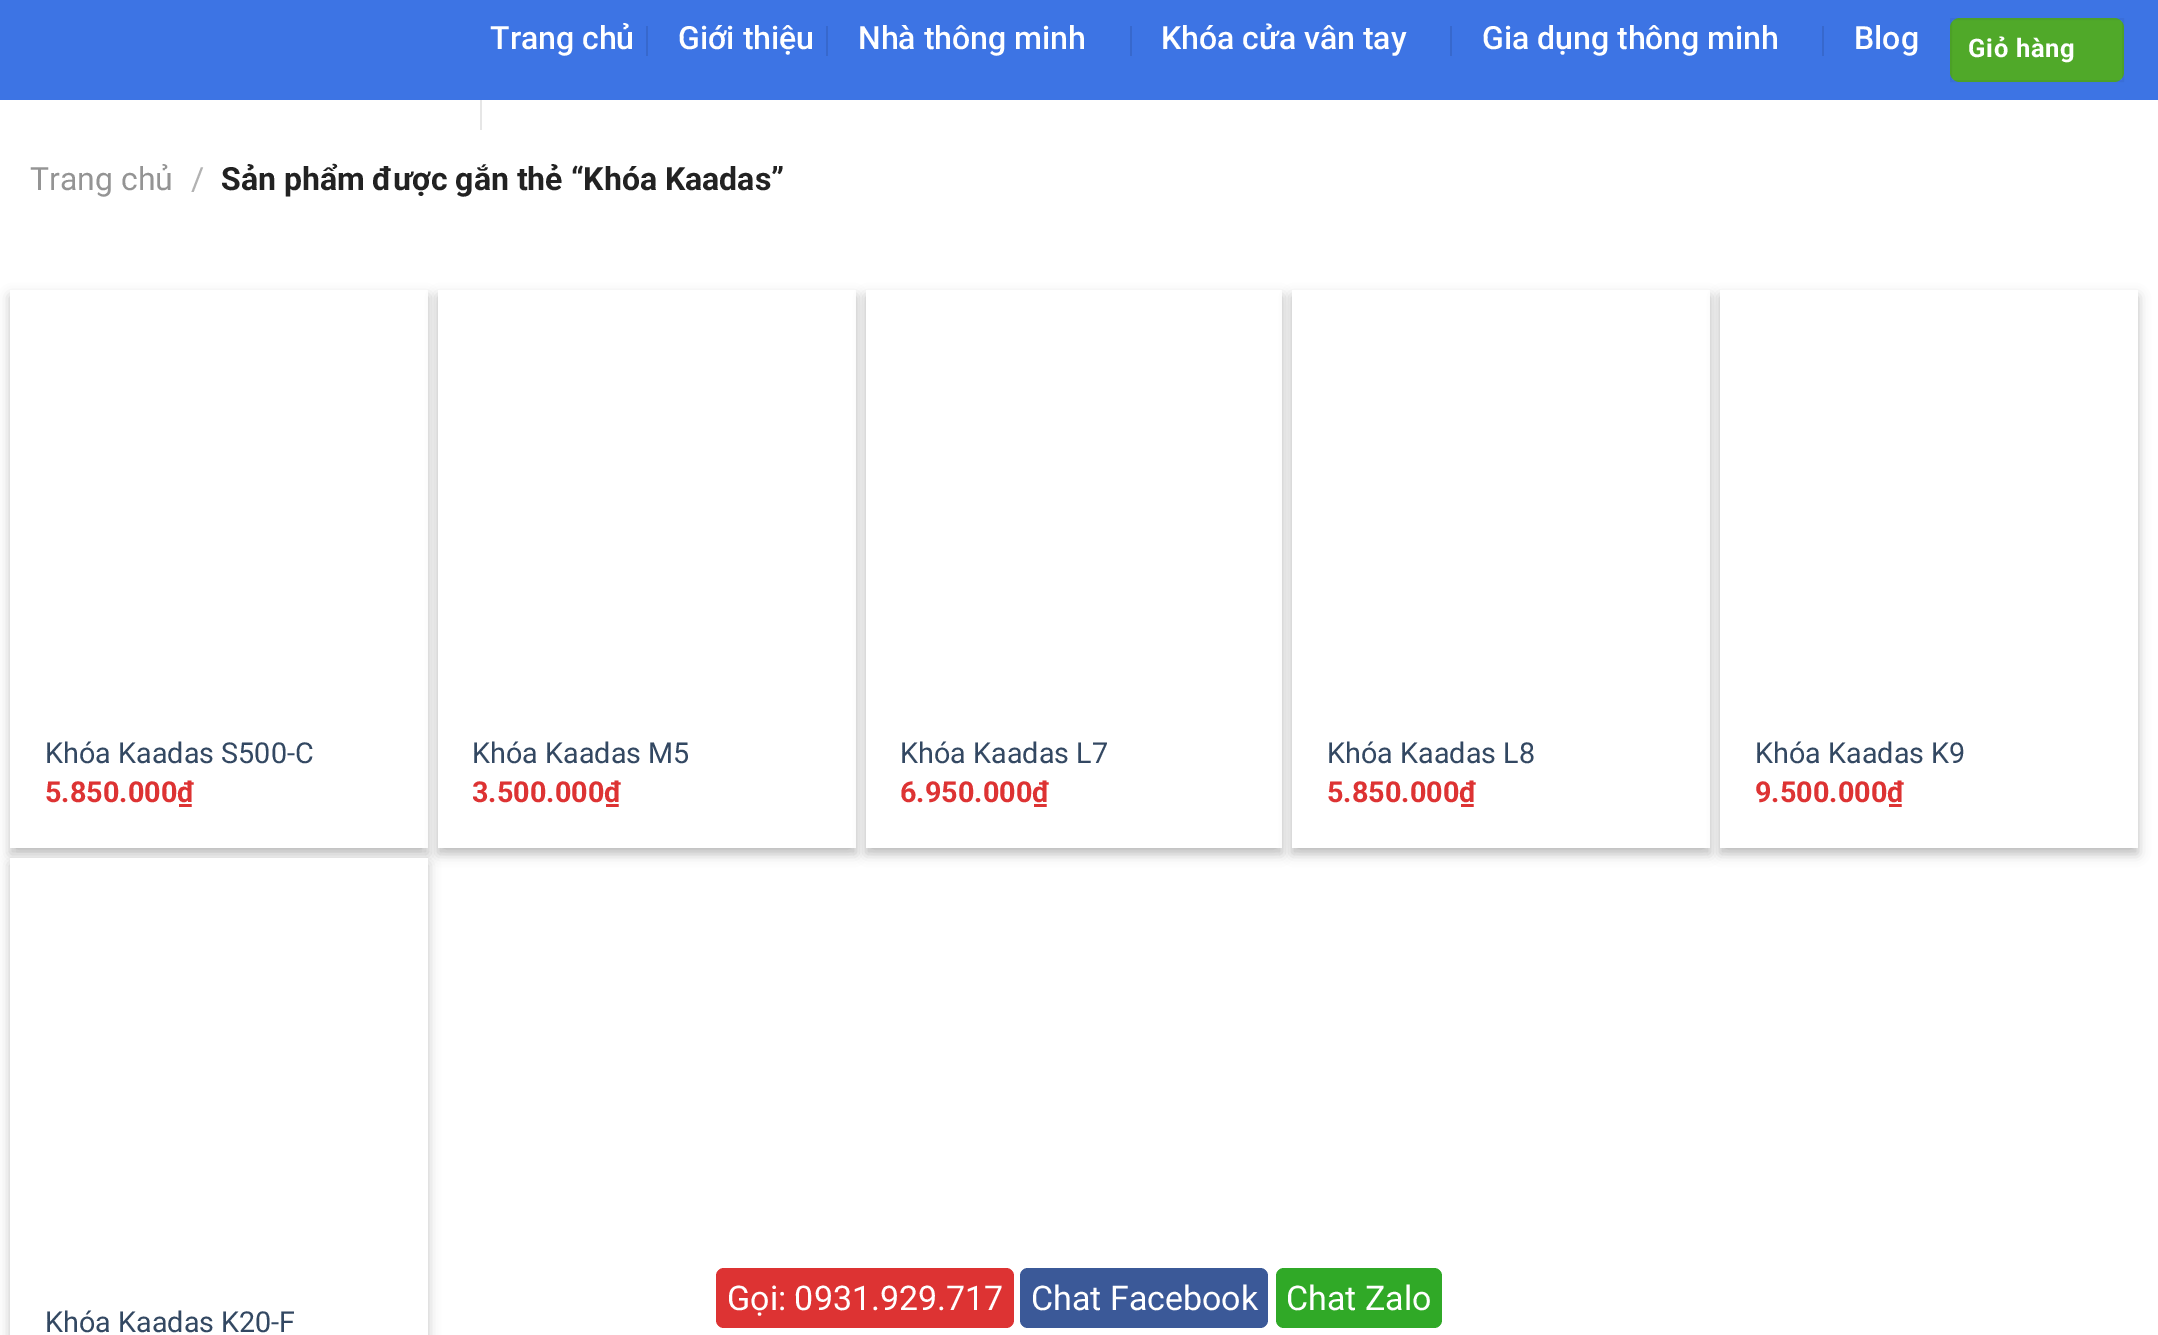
%!PS
<< /PageSize [2158 1335] /PageUsesTransparency true >> setpagedevice
/rgb { dup -16 bitshift 255 div exch dup -8 bitshift 255 and 255 div exch 255 and 255 div setrgbcolor } def
/font { [ exch dup neg 0 0 3 -1 roll 0 0 ] selectfont } def
/text { moveto show } def
/alpha { dup .setfillconstantalpha .setstrokeconstantalpha } def
/roundrect { 5 dict begin { /r /h /w /y /x } { exch def } forall
  x r add y moveto x w add y 2 copy h add r arct x w add y h add x 1 index r arct
  x y h add x y r arct x y 2 copy exch w add exch r arct closepath end } def
/shadow { 12 dict begin { /a /b /q /h /w /y /x } { exch def } forall gsave /was 0 def
  9 -2 -9 { dup b mul 4 div /e exch def 1 sub .425 mul 2.718 exch exp 1 add a .99 .min exch div /now exch def
    1 1 now sub 1 was sub div sub alpha /was now def
    w h .min e 2 mul add 0 gt { x e sub y e sub w e 2 mul add h e 2 mul add
      q e add b .6 mul add w h .min 2 div e add .min 0 .max roundrect fill } if } for grestore end } def
0 .pushpdf14devicefilter
0 1335 translate 1 -1 scale
4 setmiterlimit
/s1 { /Roboto-Medium 32 font 16#FFFFFF rgb } def
/s2 { /Roboto-Regular 32 font 16#949494 rgb } def
/s3 { /Roboto-Regular 32 font 16#B2B2B2 rgb } def
/s4 { /Roboto-Bold 32 font 16#222222 rgb } def
/s5 { /Roboto-Regular 28.75 font 16#334862 rgb } def
/s6 { /Roboto-Bold 28.75 font 16#DD3333 rgb } def
/s7 { /Roboto-Regular 34 font 16#FFFFFF rgb } def
16#FFFFFF rgb
0 0 2158 1335 rectfill
16#3D74E4 rgb
0 0 2158 100 rectfill
s1
(Trang chủ) 490 49 text
16#3768CD rgb
646 26 2 30 rectfill
s1
(Giới thiệu) 678 49 text
16#3768CD rgb
826 26 2 30 rectfill
s1
(Nhà thông minh) 858 49 text
16#3768CD rgb
1130 26 2 30 rectfill
s1
(Khóa cửa vân tay) 1161 49 text
16#3768CD rgb
1450 26 2 30 rectfill
s1
(Gia dụng thông minh) 1482 49 text
16#3768CD rgb
1822 26 2 30 rectfill
s1
(Blog) 1854 49 text
16#E6E6E6 rgb
480 100 2 30 rectfill
16#50A929 rgb
1950 18 174 64 10 roundrect fill
0.05 alpha
16#000000 rgb
2 setlinewidth
1951 19 172 62 rectstroke
/Roboto-Bold 25.5 font
1 alpha
16#FFFFFF rgb
1968 57 moveto 0.75 0 (Giỏ hàng) ashow
s2
(Trang chủ) 30 190 text
s3
(/) 191 190 text
s4
(Sản phẩm được gắn thẻ “Khóa Kaadas”) 221 190 text
gsave
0 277 moveto 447 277 lineto 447 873 lineto 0 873 lineto closepath 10 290 moveto 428 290 lineto 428 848 lineto 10 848 lineto closepath eoclip newpath
16#000000 rgb
10 296 418 558 0 6 0.23 shadow
grestore
gsave
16 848 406 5 rectclip
16#000000 rgb
18 304 402 542 0 6 0.16 shadow
grestore
s5
(Khóa Kaadas S500-C) 45 763 text
s6
(5.850.000₫) 45 802 text
16#000000 rgb
438 296 418 558 0 6 0.23 shadow
446 304 402 542 0 6 0.16 shadow
16#FFFFFF rgb
438 290 418 558 rectfill
s5
(Khóa Kaadas M5) 472 763 text
s6
(3.500.000₫) 472 802 text
16#000000 rgb
866 296 416 558 0 6 0.23 shadow
874 304 400 542 0 6 0.16 shadow
16#FFFFFF rgb
866 290 416 558 rectfill
s5
(Khóa Kaadas L7) 900 763 text
s6
(6.950.000₫) 900 802 text
16#000000 rgb
1292 296 418 558 0 6 0.23 shadow
1300 304 402 542 0 6 0.16 shadow
16#FFFFFF rgb
1292 290 418 558 rectfill
s5
(Khóa Kaadas L8) 1327 763 text
s6
(5.850.000₫) 1327 802 text
16#000000 rgb
1720 296 418 558 0 6 0.23 shadow
1728 304 402 542 0 6 0.16 shadow
16#FFFFFF rgb
1720 290 418 558 rectfill
s5
(Khóa Kaadas K9) 1755 763 text
s6
(9.500.000₫) 1755 802 text
16#000000 rgb
10 864 418 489 0 6 0.23 shadow
16#FFFFFF rgb
10 858 418 477 rectfill
s5
(Khóa Kaadas K20-F) 45 1332 text
16#DD3333 rgb
716 1268 298 60 8 roundrect fill
s7
(Gọi: 0931.929.717) 727 1310 text
16#3B5998 rgb
1020 1268 248 60 8 roundrect fill
s7
(Chat Facebook) 1031 1310 text
16#30A927 rgb
1276 1268 166 60 8 roundrect fill
s7
(Chat Zalo) 1286 1310 text
.poppdf14devicefilter showpage
